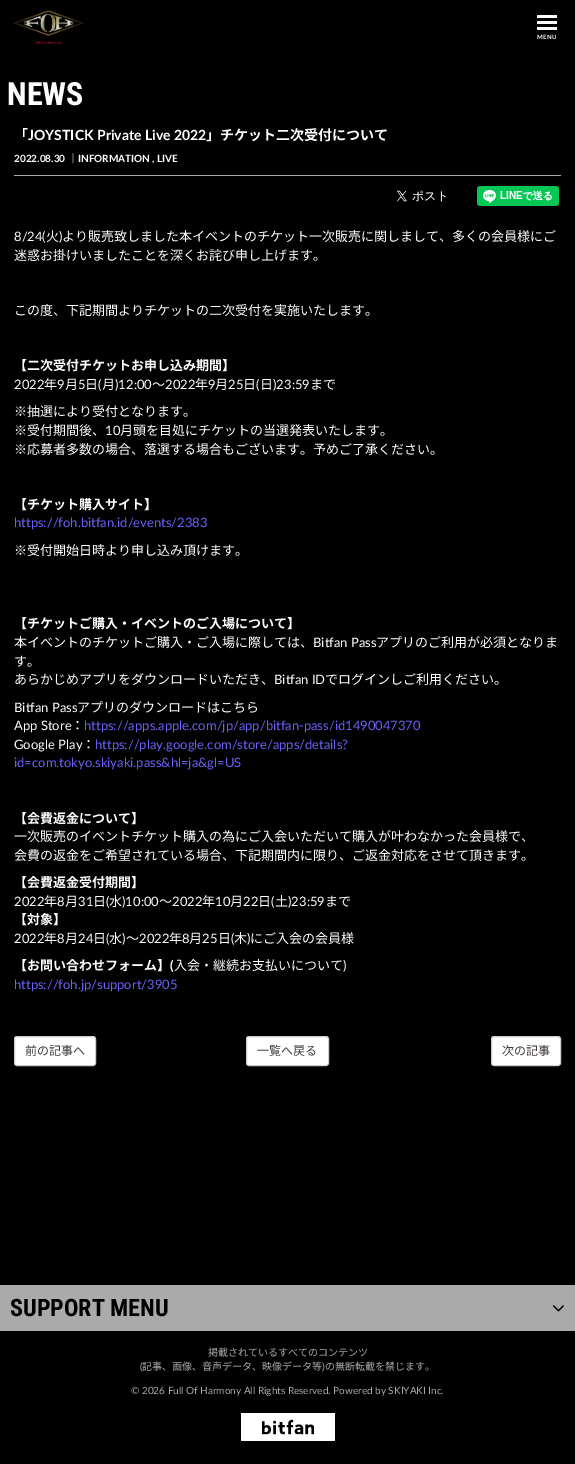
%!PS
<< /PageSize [575 1464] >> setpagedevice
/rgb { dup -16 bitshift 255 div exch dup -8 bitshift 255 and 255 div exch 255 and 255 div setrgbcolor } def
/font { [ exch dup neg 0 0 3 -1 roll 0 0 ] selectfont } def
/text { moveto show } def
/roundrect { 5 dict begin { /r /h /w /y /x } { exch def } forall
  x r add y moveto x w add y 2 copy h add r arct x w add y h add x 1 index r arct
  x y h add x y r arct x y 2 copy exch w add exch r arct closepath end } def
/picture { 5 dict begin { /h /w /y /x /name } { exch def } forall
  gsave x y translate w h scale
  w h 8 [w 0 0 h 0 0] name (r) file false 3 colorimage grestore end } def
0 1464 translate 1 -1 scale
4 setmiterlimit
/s1 { /RobotoCondensed-Bold 32 font 16#FFFFFF rgb } def
/s2 { /NotoSansJP-Bold 14 font 16#FFFFFF rgb } def
/s3 { /Lato-Bold 14 font 16#FFFFFF rgb } def
/s4 { /Lato-Bold 10 font 16#FFFFFF rgb } def
/s5 { /NotoSansJP-Bold 10 font 16#FFFFFF rgb } def
/s6 { /Lato-Regular 13 font 16#FFFFFF rgb } def
/s7 { /NotoSansJP-Regular 13 font 16#FFFFFF rgb } def
/s8 { /NotoSansJP-Bold 13 font 16#FFFFFF rgb } def
/s9 { /Lato-Regular 13 font 16#6D62F8 rgb } def
/s10 { /Lato-Bold 13 font 16#FFFFFF rgb } def
/s11 { /NotoSansJP-Regular 12 font 16#3F3B3A rgb } def
/s12 { /RobotoCondensed-Bold 24 font 16#000000 rgb } def
/s13 { /NotoSansJP-Regular 10 font 16#AAAAAA rgb } def
/s14 { /Lato-Regular 10 font 16#AAAAAA rgb } def
16#000000 rgb
0 0 575 1464 rectfill
(pic1.raw) 13 10 71 35 picture
16#FFFFFF rgb
537 21 20 3 rectfill
537 15 20 3 rectfill
537 27 20 3 rectfill
/Lato-Bold 6 font
537 39 moveto 0.5 0 (MENU) ashow
s1
(NEWS) 7 105 text
s2
(「) 14 140 text
s3
(JOYSTICK Private Live 2022) 28 140 text
s2
(」チケット二次受付について) 206 140 text
s4
(2022.08.30) 14 162 text
s5
(｜) 68 162 text
s4
(INFORMATION , LIVE) 78 162 text
16#AAAAAA rgb
14 175 547 1 rectfill
(pic2.raw) 396 190 50 12 picture
(pic3.raw) 477 186 82 20 picture
s6
(8/24\() 14 241 text
s7
(火) 46 241 text
s6
(\)) 59 241 text
s7
(より販売致しました本イベントのチケット一次販売に関しまして、多くの会員様にご) 62 241 text
(迷惑お掛けいましたことを深くお詫び申し上げます。) 14 260 text
(この度、下記期間よりチケットの二次受付を実施いたします。) 14 315 text
s8
(【二次受付チケットお申し込み期間】) 14 370 text
s6
(2022) 14 389 text
s7
(年) 44 389 text
s6
(9) 57 389 text
s7
(月) 65 389 text
s6
(5) 78 389 text
s7
(日) 85 389 text
s6
(\() 98 389 text
s7
(月) 102 389 text
s6
(\)12:00) 115 389 text
s7
(〜) 152 389 text
s6
(2022) 165 389 text
s7
(年) 195 389 text
s6
(9) 208 389 text
s7
(月) 215 389 text
s6
(25) 228 389 text
s7
(日) 243 389 text
s6
(\() 256 389 text
s7
(日) 260 389 text
s6
(\)23:59) 273 389 text
s7
(まで) 310 389 text
(※抽選により受付となります。) 14 416 text
(※受付期間後、) 14 435 text
s6
(10) 105 435 text
s7
(月頭を目処にチケットの当選発表いたします。) 120 435 text
(※応募者多数の場合、落選する場合もございます。予めご了承ください。) 14 454 text
s8
(【チケット購入サイト】) 14 509 text
s9
(https://foh.bitfan.id/events/2383) 14 527 text
s7
(※受付開始日時より申し込み頂けます。) 14 555 text
s8
(【チケットご購入・イベントのご入場について】) 14 628 text
s7
(本イベントのチケットご購入・ご入場に際しては、) 14 647 text
s6
(Bitfan Pass) 313 647 text
s7
(アプリのご利用が必須となりま) 376 647 text
(す。) 14 666 text
(あらかじめアプリをダウンロードいただき、) 14 684 text
s6
(Bitfan ID) 274 684 text
s7
(でログインしご利用ください。) 325 684 text
s6
(Bitfan Pass) 14 712 text
s7
(アプリのダウンロードはこちら) 77 712 text
s6
(App Store) 14 730 text
s7
(：) 71 730 text
s9
(https://apps.apple.com/jp/app/bitfan-pass/id1490047370) 84 730 text
s6
(Google Play) 14 749 text
s7
(：) 82 749 text
s9
(https://play.google.com/store/apps/details?) 95 749 text
(id=com.tokyo.skiyaki.pass&hl=ja&gl=US) 14 767 text
s8
(【会費返金について】) 14 823 text
s7
(一次販売のイベントチケット購入の為にご入会いただいて購入が叶わなかった会員様で、) 14 841 text
(会費の返金をご希望されている場合、下記期間内に限り、ご返金対応をさせて頂きます。) 14 860 text
s8
(【会費返金受付期間】) 14 887 text
s6
(2022) 14 906 text
s7
(年) 44 906 text
s6
(8) 57 906 text
s7
(月) 65 906 text
s6
(31) 78 906 text
s7
(日) 93 906 text
s6
(\() 106 906 text
s7
(水) 109 906 text
s6
(\)10:00) 122 906 text
s7
(〜) 159 906 text
s6
(2022) 172 906 text
s7
(年) 202 906 text
s6
(10) 215 906 text
s7
(月) 230 906 text
s6
(22) 243 906 text
s7
(日) 258 906 text
s6
(\() 271 906 text
s7
(土) 275 906 text
s6
(\)23:59) 288 906 text
s7
(まで) 325 906 text
s8
(【対象】) 14 924 text
s6
(2022) 14 943 text
s7
(年) 44 943 text
s6
(8) 57 943 text
s7
(月) 65 943 text
s6
(24) 78 943 text
s7
(日) 93 943 text
s6
(\() 106 943 text
s7
(水) 109 943 text
s6
(\)) 122 943 text
s7
(〜) 126 943 text
s6
(2022) 139 943 text
s7
(年) 169 943 text
s6
(8) 182 943 text
s7
(月) 189 943 text
s6
(25) 202 943 text
s7
(日) 218 943 text
s6
(\() 231 943 text
s7
(木) 234 943 text
s6
(\)) 247 943 text
s7
(にご入会の会員様) 250 943 text
s8
(【お問い合わせフォーム】) 14 970 text
s10
(\() 170 970 text
s7
(入会・継続お支払いについて) 174 970 text
s6
(\)) 343 970 text
s9
(https://foh.jp/support/3905) 14 989 text
16#FFFFFF rgb
14.5 1036.5 81 29 2.5 roundrect gsave fill grestore
16#CCCCCC rgb
stroke
s11
(前の記事へ) 25 1055 text
16#FFFFFF rgb
246.5 1036.5 82 29 2.5 roundrect gsave fill grestore
16#CCCCCC rgb
stroke
s11
(一覧へ戻る) 257 1055 text
16#FFFFFF rgb
491.5 1036.5 69 29 2.5 roundrect gsave fill grestore
16#CCCCCC rgb
stroke
s11
(次の記事) 502 1055 text
16#AAAAAA rgb
0 1285 575 46 rectfill
s12
(SUPPORT MENU) 10 1316 text
(pic4.raw) 552 1305 12 7 picture
s13
(掲載されているすべてのコンテンツ) 208 1356 text
s14
(\() 140 1370 text
s13
(記事、画像、音声データ、映像データ等) 142 1370 text
s14
(\)) 322 1370 text
s13
(の無断転載を禁じます。) 325 1370 text
s14
(© 2026 Full Of Harmony All Rights Reserved. Powered by SKIYAKI Inc.) 131 1394 text
16#FFFFFF rgb
241 1413 94 28 rectfill
(pic5.raw) 262 1419 52 16 picture
showpage
